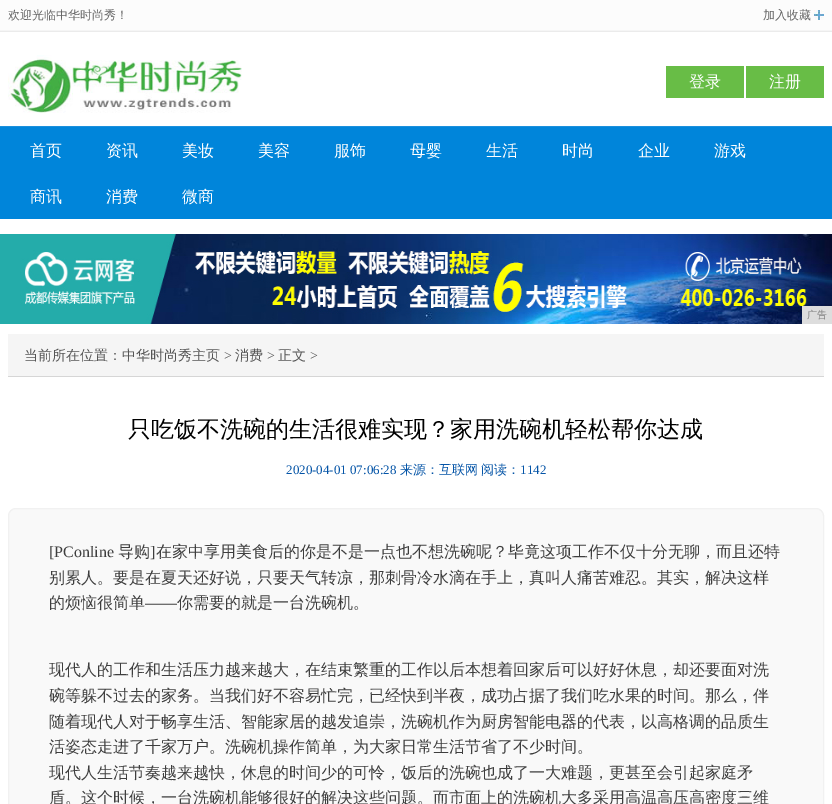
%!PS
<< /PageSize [832 804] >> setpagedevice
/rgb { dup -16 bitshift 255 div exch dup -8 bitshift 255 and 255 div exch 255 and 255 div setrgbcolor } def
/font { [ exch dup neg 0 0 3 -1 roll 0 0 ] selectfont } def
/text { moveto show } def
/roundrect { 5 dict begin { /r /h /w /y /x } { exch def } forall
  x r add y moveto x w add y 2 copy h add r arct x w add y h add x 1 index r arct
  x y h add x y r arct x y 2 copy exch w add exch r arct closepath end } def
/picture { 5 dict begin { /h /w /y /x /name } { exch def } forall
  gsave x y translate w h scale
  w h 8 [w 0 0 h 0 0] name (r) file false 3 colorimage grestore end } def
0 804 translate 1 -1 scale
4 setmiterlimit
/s1 { /WenQuanYiZenHei-Medium 12 font 16#666666 rgb } def
/s2 { /WenQuanYiZenHei-Medium 16 font 16#FFFFFF rgb } def
/s3 { /WenQuanYiZenHei-Medium 10 font 16#808080 rgb } def
/s4 { /WenQuanYiZenHei-Medium 14 font 16#555555 rgb } def
/s5 { /LiberationSerif-Regular 14 font 16#555555 rgb } def
/s6 { /WenQuanYiZenHei-Medium 23 font 16#000000 rgb } def
/s7 { /LiberationSerif-Regular 13 font 16#0454A7 rgb } def
/s8 { /WenQuanYiZenHei-Medium 13 font 16#0454A7 rgb } def
/s9 { /LiberationSerif-Regular 16 font 16#3E3E3E rgb } def
/s10 { /WenQuanYiZenHei-Medium 16 font 16#3E3E3E rgb } def
16#FFFFFF rgb
0 0 832 804 rectfill
16#FCFCFC rgb
0 0 832 30 rectfill
16#F5F5F5 rgb
0 30 832 1 rectfill
s1
(欢迎光临中华时尚秀！) 8 19 text
(pic1.raw) 814 10 10 10 picture
(加入收藏) 763 19 text
16#EBEBEB rgb
0 31 832 1 rectfill
(pic2.raw) 8 55 234 58 picture
16#68BD46 rgb
666 66 78 32 rectfill
s2
(登录) 689 87 text
16#68BD46 rgb
746 66 78 32 rectfill
s2
(注册) 769 87 text
16#0085DA rgb
0 127 832 92 rectfill
16#1B90DC rgb
0 126 832 1 rectfill
s2
(首页) 30 156 text
(资讯) 106 156 text
(美妆) 182 156 text
(美容) 258 156 text
(服饰) 334 156 text
(母婴) 410 156 text
(生活) 486 156 text
(时尚) 562 156 text
(企业) 638 156 text
(游戏) 714 156 text
(商讯) 30 202 text
(消费) 106 202 text
(微商) 182 202 text
(pic3.raw) 0 234 832 90 picture
16#DDDDDD rgb
802 306 30 18 rectfill
s3
(广告) 807 318 text
16#F5F5F5 rgb
8 334 816 42 rectfill
16#D6D6D6 rgb
8 376 816 1 rectfill
s4
(当前所在位置：中华时尚秀主页) 24 360 text
s5
(>) 224 360 text
s4
(消费) 235 360 text
s5
(>) 267 360 text
s4
(正文) 278 360 text
s5
(>) 310 360 text
s6
(只吃饭不洗碗的生活很难实现？家用洗碗机轻松帮你达成) 128 437 text
s7
(2020-04-01 07:06:28) 286 474 text
s8
(来源：互联网) 400 474 text
(阅读：) 481 474 text
s7
(1142) 520 474 text
16#F9F9F9 rgb
8.5 508.5 815 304 7.5 roundrect gsave fill grestore
16#F1F1F1 rgb
stroke
s9
([PConline) 49 557 text
s10
(导购) 118 557 text
s9
(]) 150 557 text
s10
(在家中享用美食后的你是不是一点也不想洗碗呢？毕竟这项工作不仅十分无聊，而且还特) 156 557 text
(别累人。要是在夏天还好说，只要天气转凉，那刺骨冷水滴在手上，真叫人痛苦难忍。其实，解决这样) 49 583 text
(的烦恼很简单) 49 608 text
s9
(——) 145 608 text
s10
(你需要的就是一台洗碗机。) 177 608 text
(现代人的工作和生活压力越来越大，在结束繁重的工作以后本想着回家后可以好好休息，却还要面对洗) 49 675 text
(碗等躲不过去的家务。当我们好不容易忙完，已经快到半夜，成功占据了我们吃水果的时间。那么，伴) 49 701 text
(随着现代人对于畅享生活、智能家居的越发追崇，洗碗机作为厨房智能电器的代表，以高格调的品质生) 49 727 text
(活姿态走进了千家万户。洗碗机操作简单，为大家日常生活节省了不少时间。) 49 752 text
(现代人生活节奏越来越快，休息的时间少的可怜，饭后的洗碗也成了一大难题，更甚至会引起家庭矛) 49 778 text
(盾。这个时候，一台洗碗机能够很好的解决这些问题。而市面上的洗碗机大多采用高温高压高密度三维) 49 803 text
showpage
